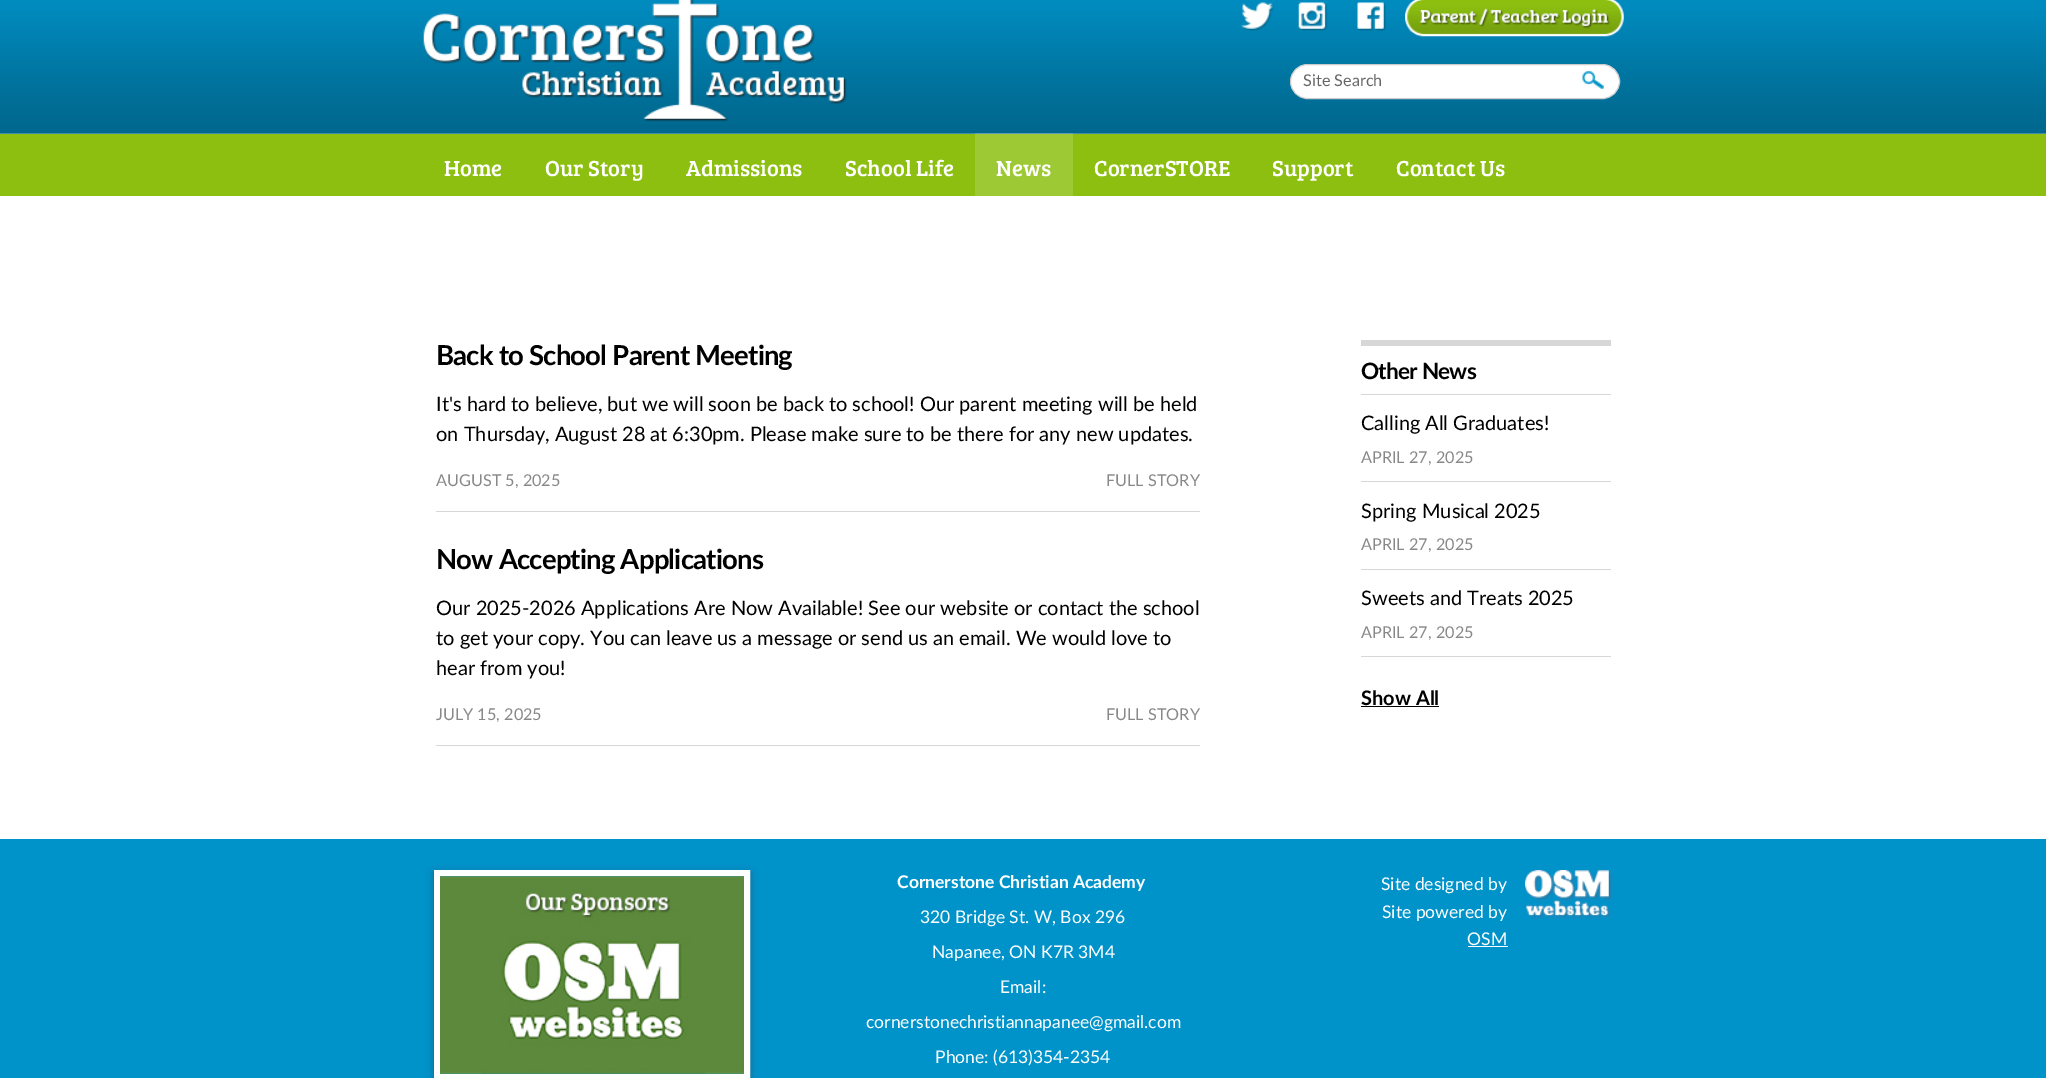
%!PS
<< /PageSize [2046 1078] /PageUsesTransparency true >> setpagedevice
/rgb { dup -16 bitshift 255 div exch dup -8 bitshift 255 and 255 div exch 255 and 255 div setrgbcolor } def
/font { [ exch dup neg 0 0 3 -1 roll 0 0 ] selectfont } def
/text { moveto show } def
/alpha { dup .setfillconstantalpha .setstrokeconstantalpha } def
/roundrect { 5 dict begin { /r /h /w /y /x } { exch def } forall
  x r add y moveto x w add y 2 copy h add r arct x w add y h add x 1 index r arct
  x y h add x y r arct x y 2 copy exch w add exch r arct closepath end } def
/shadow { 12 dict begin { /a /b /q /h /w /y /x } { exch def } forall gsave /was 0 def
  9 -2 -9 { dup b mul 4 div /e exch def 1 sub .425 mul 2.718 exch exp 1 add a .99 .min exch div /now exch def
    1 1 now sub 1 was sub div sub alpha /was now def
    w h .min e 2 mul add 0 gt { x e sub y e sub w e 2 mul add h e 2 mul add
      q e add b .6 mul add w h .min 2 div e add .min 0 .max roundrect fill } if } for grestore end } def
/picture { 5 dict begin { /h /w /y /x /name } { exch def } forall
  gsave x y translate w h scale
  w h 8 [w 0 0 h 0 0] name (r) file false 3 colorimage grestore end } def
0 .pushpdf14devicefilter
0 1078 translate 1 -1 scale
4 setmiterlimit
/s1 { /Lato-Regular 16.25 font 16#666666 rgb } def
/s2 { /BreeSerif-Regular 22.5 font 16#FFFFFF rgb } def
/s3 { /Lato-Regular 20 font 16#000000 rgb } def
/s4 { /Lato-Regular 16.25 font 16#888888 rgb } def
/s5 { /Lato-Bold 20 font 16#000000 rgb } def
/s6 { /Lato-Bold 17.5 font 16#FFFFFF rgb } def
/s7 { /Lato-Regular 17.5 font 16#FFFFFF rgb } def
16#FFFFFF rgb
0 0 2046 1078 rectfill
(pic1.raw) 0 0 2046 134 picture
(pic2.raw) 423 0 424 122 picture
(pic3.raw) 1241 2 33 29 picture
(pic4.raw) 1298 2 30 29 picture
(pic5.raw) 1357 2 29 29 picture
(pic6.raw) 1405 0 219 37 picture
1290.5 64.5 329 34 17 roundrect gsave fill grestore
16#CCCCCC rgb
stroke
s1
(Site Search) 1303 86 text
(pic7.raw) 1582 71 22 18 picture
16#8CBF10 rgb
0 134 2046 62 rectfill
s2
(Home) 444 176 text
(Our Story) 545 176 text
(Admissions) 686 176 text
(School Life) 845 176 text
0.15 alpha
975 133 98 63 rectfill
1 alpha
(News) 996 176 text
(CornerSTORE) 1094 176 text
(Support) 1272 176 text
(Contact Us) 1396 176 text
16#D7D7D7 rgb
436 511 764 1 rectfill
/Lato-Bold 27.5 font
16#000000 rgb
436 365 moveto -0.8 0 (Back to School Parent Meeting) ashow
s3
(It's hard to believe, but we will soon be back to school! Our parent meeting will be held) 436 411 text
(on Thursday, August 28 at 6:30pm. Please make sure to be there for any new updates.) 436 441 text
s4
(AUGUST 5, 2025) 436 486 text
(FULL STORY) 1106 486 text
16#D7D7D7 rgb
436 745 764 1 rectfill
/Lato-Bold 27.5 font
16#000000 rgb
436 569 moveto -0.8 0 (Now Accepting Applications) ashow
s3
(Our 2025-2026 Applications Are Now Available! See our website or contact the school) 436 615 text
(to get your copy. You can leave us a message or send us an email. We would love to) 436 645 text
(hear from you!) 436 675 text
s4
(JULY 15, 2025) 436 720 text
(FULL STORY) 1106 720 text
16#D7D7D7 rgb
1361 340 250 6 rectfill
1361 394 250 1 rectfill
/Lato-Bold 22.5 font
16#000000 rgb
1361 379 moveto -0.75 0 (Other News) ashow
16#D7D7D7 rgb
1361 481 250 1 rectfill
s3
(Calling All Graduates!) 1361 430 text
s4
(APRIL 27, 2025) 1361 463 text
16#D7D7D7 rgb
1361 569 250 1 rectfill
s3
(Spring Musical 2025) 1361 518 text
s4
(APRIL 27, 2025) 1361 550 text
16#D7D7D7 rgb
1361 656 250 1 rectfill
s3
(Sweets and Treats 2025) 1361 605 text
s4
(APRIL 27, 2025) 1361 638 text
s5
(Show All) 1361 705 text
1361 706 78 1 rectfill
16#0093CA rgb
0 839 2046 239 rectfill
16#323232 rgb
434 873 316 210 0 4 0.5 shadow
16#FFFFFF rgb
6 setlinewidth
437 873 310 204 rectstroke
(pic8.raw) 440 876 304 198 picture
s6
(Cornerstone Christian Academy) 897 888 text
s7
(320 Bridge St. W, Box 296) 920 923 text
(Napanee, ON K7R 3M4) 932 958 text
(Email:) 1000 993 text
(cornerstonechristiannapanee@gmail.com) 866 1028 text
(Phone: \(613\)354-2354) 935 1063 text
(Site designed by) 1381 890 text
(Site powered by) 1382 918 text
(OSM) 1467 945 text
1468 946 40 1 rectfill
(pic9.raw) 1525 870 88 50 picture
.poppdf14devicefilter showpage
